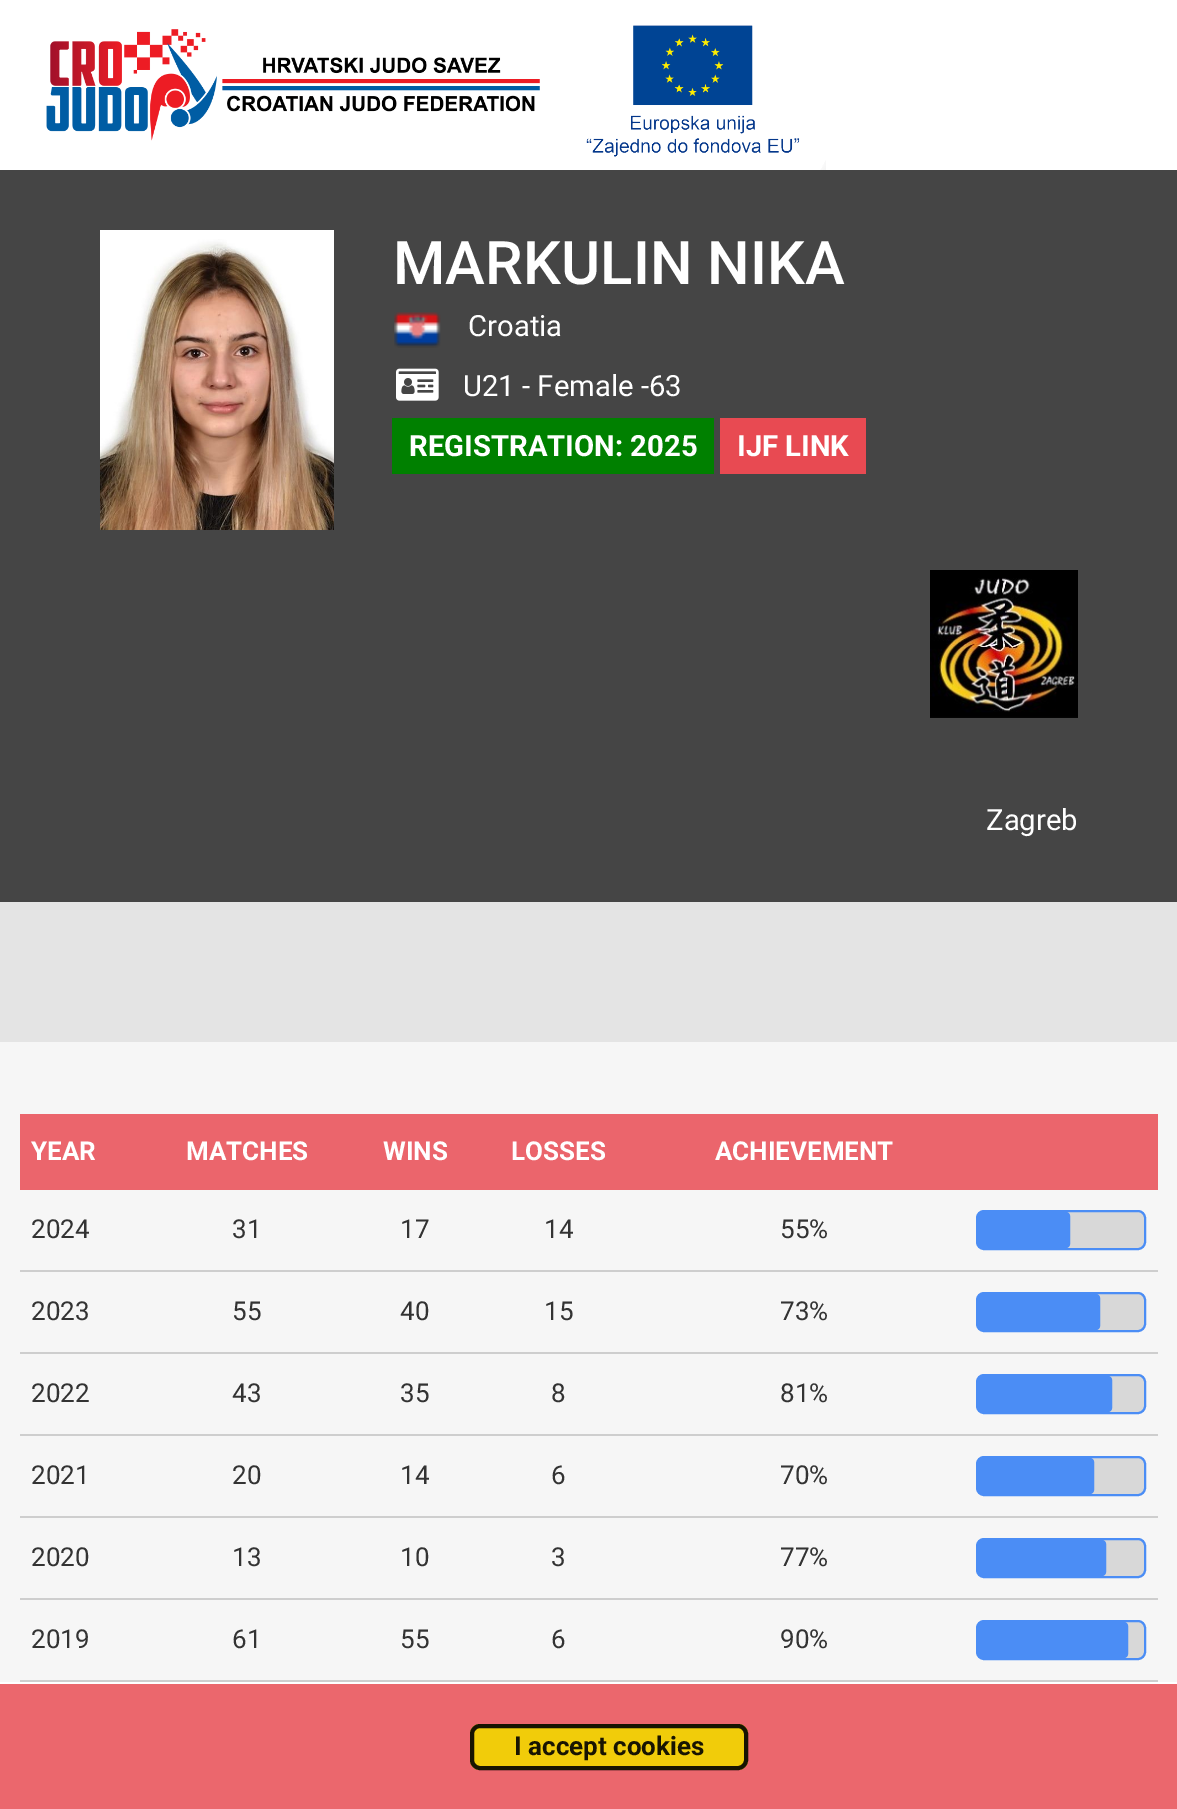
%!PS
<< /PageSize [1177 1809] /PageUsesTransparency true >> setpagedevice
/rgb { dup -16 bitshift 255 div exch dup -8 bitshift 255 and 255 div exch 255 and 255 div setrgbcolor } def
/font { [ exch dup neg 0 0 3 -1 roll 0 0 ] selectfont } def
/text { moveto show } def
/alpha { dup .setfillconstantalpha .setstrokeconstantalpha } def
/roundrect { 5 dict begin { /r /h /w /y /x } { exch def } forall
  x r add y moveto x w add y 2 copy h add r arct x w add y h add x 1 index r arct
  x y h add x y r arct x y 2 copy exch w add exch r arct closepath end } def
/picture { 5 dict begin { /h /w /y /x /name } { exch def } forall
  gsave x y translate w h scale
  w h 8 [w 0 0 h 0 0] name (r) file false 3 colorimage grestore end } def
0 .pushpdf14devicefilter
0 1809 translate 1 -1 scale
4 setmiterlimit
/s1 { /Roboto-Medium 60 font 16#FFFFFF rgb } def
/s2 { /Roboto-Regular 29.25 font 16#FFFFFF rgb } def
/s3 { /Roboto-Bold 29.25 font 16#FFFFFF rgb } def
/s4 { /Roboto-Bold 26 font 16#FFFFFF rgb } def
/s5 { /Roboto-Regular 26 font 16#333333 rgb } def
/s6 { /Roboto-Bold 26 font 16#181401 rgb } def
16#454545 rgb
0 0 1177 1809 rectfill
16#FFFFFF rgb
0 0 1177 170 rectfill
(pic1.raw) 46 29 494 112 picture
(pic2.raw) 586 25 240 145 picture
(pic3.raw) 100 230 234 300 picture
s1
(MARKULIN NIKA) 393 284 text
(pic4.raw) 394 312 47 36 picture
s2
(Croatia) 468 336 text
(pic5.raw) 396 368 43 33 picture
(U21 - Female -63) 463 396 text
16#008000 rgb
392 418 322 56 rectfill
s3
(REGISTRATION: 2025) 409 456 text
16#E84A52 rgb
720 418 146 56 rectfill
s3
(IJF LINK) 737 456 text
(pic6.raw) 930 570 148 148 picture
s2
(Zagreb) 986 830 text
16#F6F6F6 rgb
0 1042 1177 640 rectfill
16#EB676D rgb
0 1684 1177 125 rectfill
16#E4E4E4 rgb
0 902 1177 140 rectfill
16#EB656C rgb
20 1114 1138 76 rectfill
s4
(YEAR) 31 1160 text
(MATCHES) 186 1160 text
(WINS) 383 1160 text
(LOSSES) 511 1160 text
(ACHIEVEMENT) 715 1160 text
16#CECECE rgb
20 1270 1138 2 rectfill
s5
(2024) 31 1238 text
(31) 232 1238 text
(17) 400 1238 text
(14) 544 1238 text
(55%) 780 1238 text
16#D8D8D8 rgb
977 1211 168 38 7 roundrect gsave fill grestore
16#4B8DF5 rgb
2 setlinewidth
stroke
979 1213 90 34 3 roundrect gsave fill grestore
stroke
16#CECECE rgb
20 1352 1138 2 rectfill
s5
(2023) 31 1320 text
(55) 232 1320 text
(40) 400 1320 text
(15) 544 1320 text
(73%) 780 1320 text
16#D8D8D8 rgb
977 1293 168 38 7 roundrect gsave fill grestore
16#4B8DF5 rgb
stroke
979 1295 120 34 3 roundrect gsave fill grestore
stroke
16#CECECE rgb
20 1434 1138 2 rectfill
s5
(2022) 31 1402 text
(43) 232 1402 text
(35) 400 1402 text
(8) 551 1402 text
(81%) 780 1402 text
16#D8D8D8 rgb
977 1375 168 38 7 roundrect gsave fill grestore
16#4B8DF5 rgb
stroke
979 1377 132 34 3 roundrect gsave fill grestore
stroke
16#CECECE rgb
20 1516 1138 2 rectfill
s5
(2021) 31 1484 text
(20) 232 1484 text
(14) 400 1484 text
(6) 551 1484 text
(70%) 780 1484 text
16#D8D8D8 rgb
977 1457 168 38 7 roundrect gsave fill grestore
16#4B8DF5 rgb
stroke
979 1459 114 34 3 roundrect gsave fill grestore
stroke
16#CECECE rgb
20 1598 1138 2 rectfill
s5
(2020) 31 1566 text
(13) 232 1566 text
(10) 400 1566 text
(3) 551 1566 text
(77%) 780 1566 text
16#D8D8D8 rgb
977 1539 168 38 7 roundrect gsave fill grestore
16#4B8DF5 rgb
stroke
979 1541 126 34 3 roundrect gsave fill grestore
stroke
16#CECECE rgb
20 1680 1138 2 rectfill
s5
(2019) 31 1648 text
(61) 232 1648 text
(55) 400 1648 text
(6) 551 1648 text
(90%) 780 1648 text
16#D8D8D8 rgb
977 1621 168 38 7 roundrect gsave fill grestore
16#4B8DF5 rgb
stroke
979 1623 148 34 3 roundrect gsave fill grestore
stroke
0.9 alpha
16#EC7061 rgb
470 1724 278 46 10 roundrect fill
16#D45B61 rgb
4 setlinewidth
472 1726 274 42 8 roundrect stroke
1 alpha
16#FFFFFF rgb
0 1682 1177 2 rectfill
0.9 alpha
16#F1D600 rgb
470 1724 278 46 10 roundrect fill
16#000000 rgb
472 1726 274 42 8 roundrect stroke
1 alpha
s6
(I accept cookies) 514 1755 text
.poppdf14devicefilter showpage
